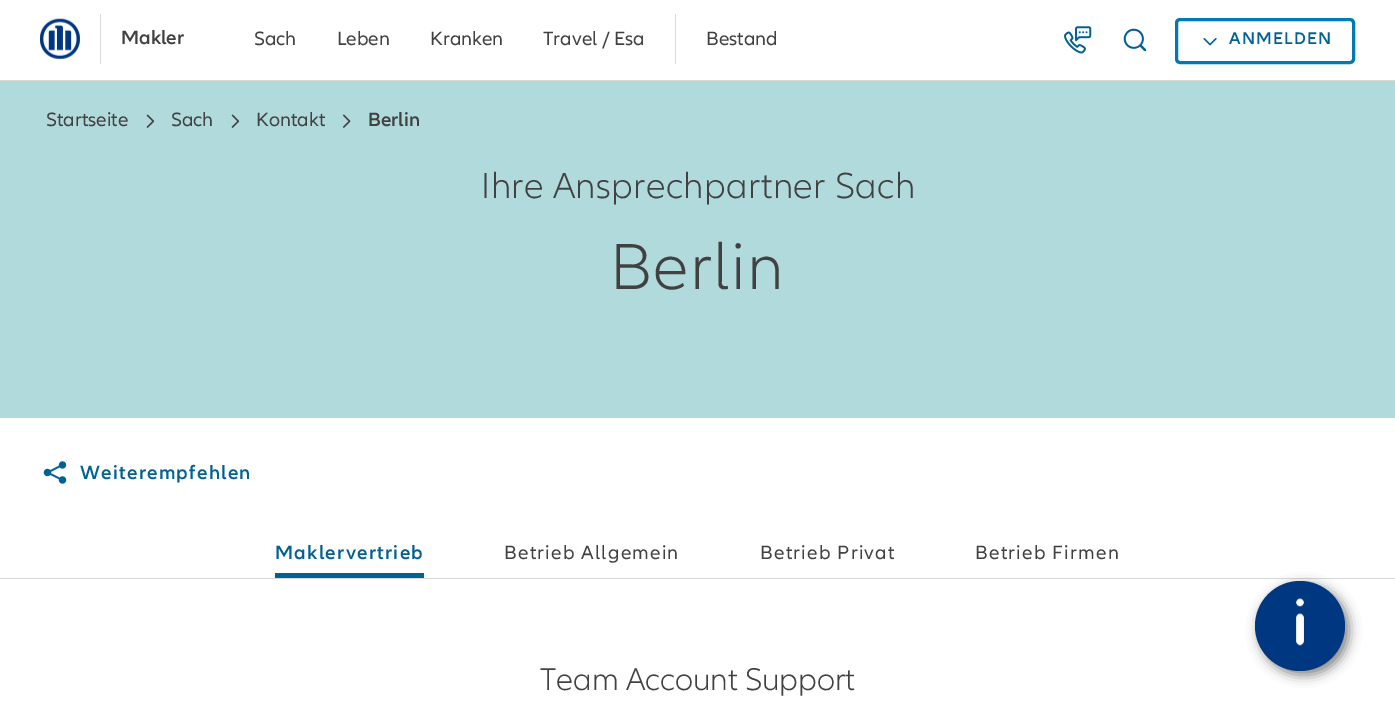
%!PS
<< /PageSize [1395 721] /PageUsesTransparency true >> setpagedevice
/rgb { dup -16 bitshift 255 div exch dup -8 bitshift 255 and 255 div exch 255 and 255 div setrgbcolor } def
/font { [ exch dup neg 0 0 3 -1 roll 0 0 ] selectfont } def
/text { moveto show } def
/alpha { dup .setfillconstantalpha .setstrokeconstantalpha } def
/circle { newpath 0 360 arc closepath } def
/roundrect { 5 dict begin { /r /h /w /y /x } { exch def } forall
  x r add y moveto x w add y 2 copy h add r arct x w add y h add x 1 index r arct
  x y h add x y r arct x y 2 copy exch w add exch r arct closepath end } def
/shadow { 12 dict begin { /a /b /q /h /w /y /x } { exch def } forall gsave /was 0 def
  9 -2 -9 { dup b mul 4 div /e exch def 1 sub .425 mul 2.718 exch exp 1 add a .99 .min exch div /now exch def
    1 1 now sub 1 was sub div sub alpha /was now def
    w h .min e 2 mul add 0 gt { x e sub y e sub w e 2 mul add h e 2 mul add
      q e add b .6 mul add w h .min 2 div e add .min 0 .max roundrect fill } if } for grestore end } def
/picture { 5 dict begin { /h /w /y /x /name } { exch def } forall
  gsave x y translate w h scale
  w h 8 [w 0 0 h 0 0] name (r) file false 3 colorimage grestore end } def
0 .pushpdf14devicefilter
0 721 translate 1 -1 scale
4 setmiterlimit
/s1 { /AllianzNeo-SemiBold 20 font 16#414141 rgb } def
/s2 { /AllianzNeo-Regular 20 font 16#414141 rgb } def
/s3 { /AllianzNeo-Light 32.5 font 16#414141 rgb } def
16#FFFFFF rgb
0 0 1395 721 rectfill
16#D9D9D9 rgb
0 80 1395 1 rectfill
(pic1.raw) 40 18 40 41 picture
100 14 1 50 rectfill
s1
(Makler) 121 44 text
s2
(Sach) 254 45 text
(Leben) 337 45 text
(Kranken) 430 45 text
(Travel / Esa) 543 45 text
16#D9D9D9 rgb
675 14 1 50 rectfill
s2
(Bestand) 706 45 text
(pic2.raw) 1064 26 28 28 picture
(pic3.raw) 1123 28 24 24 picture
16#007AB3 rgb
3 setlinewidth
1176.5 19.5 177 43 3.5 roundrect stroke
(pic4.raw) 1203 38 14 8 picture
/AllianzNeo-SemiBold 17.5 font
16#006192 rgb
1229 44 moveto 1.25 0 (ANMELDEN) ashow
16#B1DADD rgb
0 81 1395 337 rectfill
s2
(Startseite) 46 126 text
(pic5.raw) 146 114 9 14 picture
(Sach) 171 126 text
(pic5.raw) 231 114 9 14 picture
(Kontakt) 256 126 text
(pic6.raw) 343 114 8 14 picture
s1
(Berlin) 368 126 text
/AllianzNeo-Light 37.5 font
481 198 moveto 0.4 0 (Ihre Ansprechpartner Sach) ashow
/AllianzNeo-Light 67.5 font
610 289 moveto 1.25 0 (Berlin) ashow
(pic7.raw) 43 461 24 23 picture
/AllianzNeo-SemiBold 20 font
16#006192 rgb
80 479 moveto 1.25 0 (Weiterempfehlen) ashow
16#D9D9D9 rgb
0 578 1395 1 rectfill
16#006192 rgb
275 559 moveto 1.25 0 (Maklervertrieb) ashow
/AllianzNeo-Regular 20 font
16#414141 rgb
504 559 moveto 1.25 0 (Betrieb Allgemein) ashow
760 559 moveto 1.25 0 (Betrieb Privat) ashow
975 559 moveto 1.25 0 (Betrieb Firmen) ashow
16#006192 rgb
275 573 149 5 rectfill
s3
(Team Account Support) 540 690 text
16#000000 rgb
1259 585 90 90 45 6 0.5 shadow
16#003781 rgb
1300 626 45 circle fill
(pic8.raw) 1296 598 8 48 picture
.poppdf14devicefilter showpage
